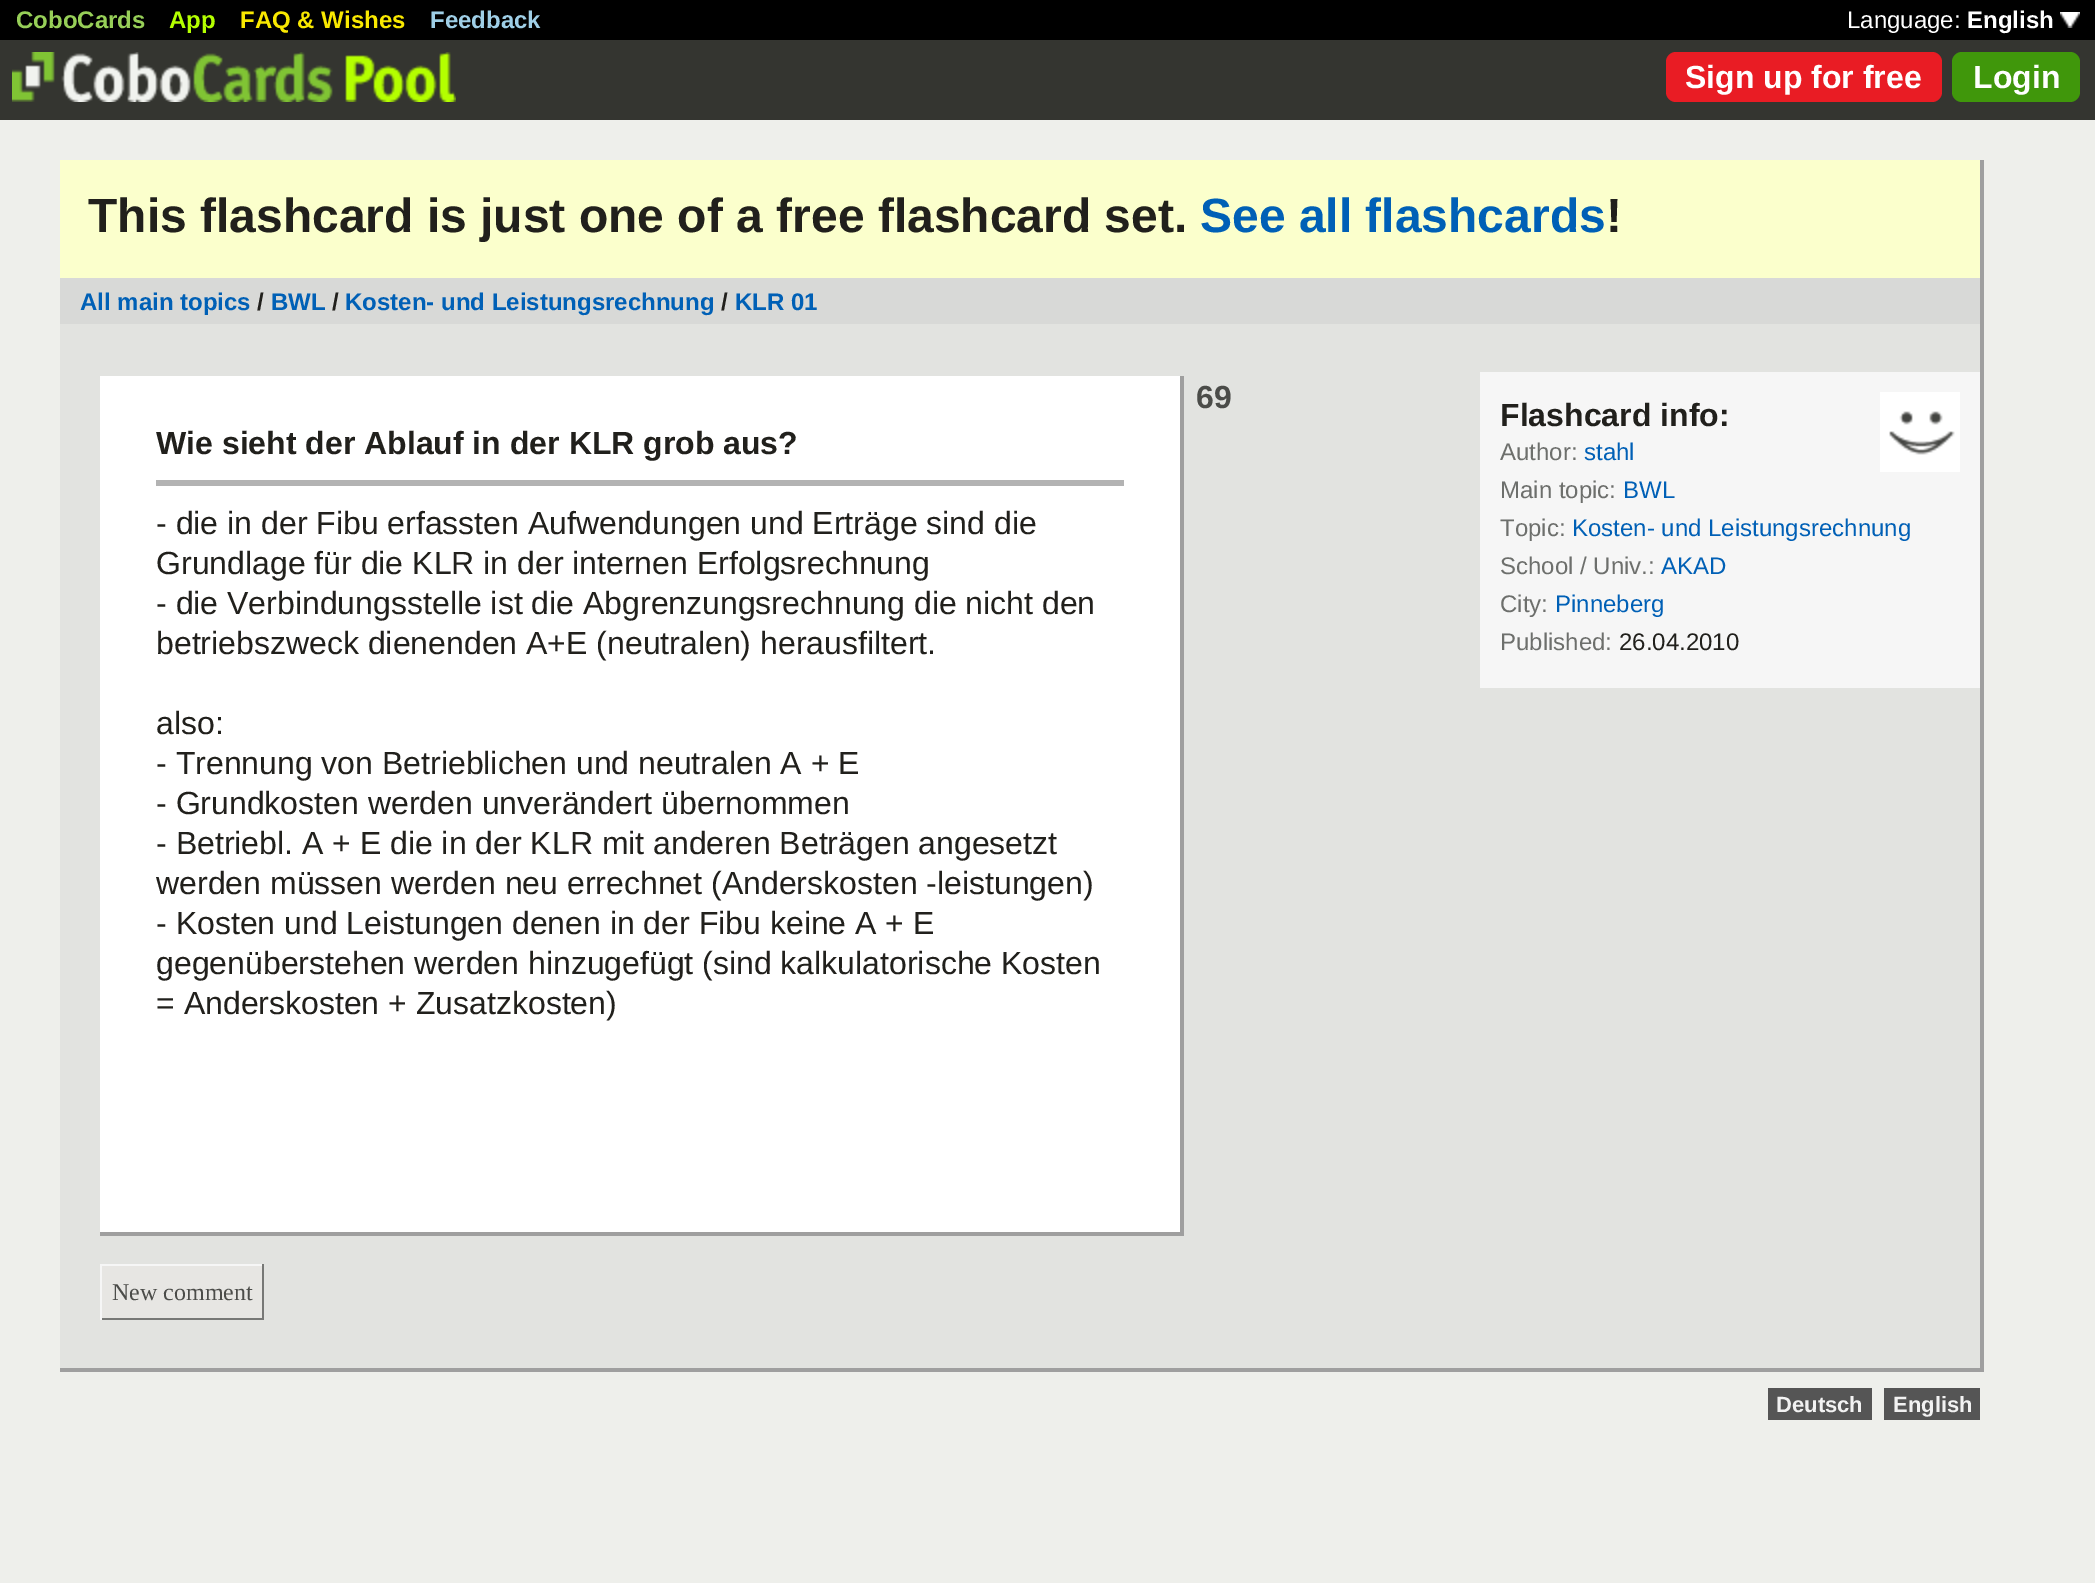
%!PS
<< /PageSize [2095 1583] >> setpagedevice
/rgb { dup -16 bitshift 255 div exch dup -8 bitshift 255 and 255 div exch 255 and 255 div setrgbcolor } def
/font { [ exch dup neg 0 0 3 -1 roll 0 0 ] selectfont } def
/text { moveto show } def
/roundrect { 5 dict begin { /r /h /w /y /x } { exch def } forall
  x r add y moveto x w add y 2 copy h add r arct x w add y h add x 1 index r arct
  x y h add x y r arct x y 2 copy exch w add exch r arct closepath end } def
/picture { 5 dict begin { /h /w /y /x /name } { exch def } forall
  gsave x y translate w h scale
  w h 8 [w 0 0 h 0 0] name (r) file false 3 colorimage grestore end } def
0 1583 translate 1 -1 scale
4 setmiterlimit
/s1 { /LiberationSans-Bold 24 font 16#97CF58 rgb } def
/s2 { /LiberationSans-Bold 24 font 16#B4FF00 rgb } def
/s3 { /LiberationSans-Bold 24 font 16#F9E800 rgb } def
/s4 { /LiberationSans-Bold 24 font 16#9FCFE7 rgb } def
/s5 { /LiberationSans-Regular 24 font 16#FFFFFF rgb } def
/s6 { /LiberationSans-Bold 24 font 16#FFFFFF rgb } def
/s7 { /LiberationSans-Bold 32 font 16#FFFFFF rgb } def
/s8 { /LiberationSans-Bold 48 font 16#21201C rgb } def
/s9 { /LiberationSans-Bold 48 font 16#0060B6 rgb } def
/s10 { /LiberationSans-Bold 24 font 16#0060B6 rgb } def
/s11 { /LiberationSans-Bold 24 font 16#21201C rgb } def
/s12 { /LiberationSans-Bold 32 font 16#4B4C49 rgb } def
/s13 { /LiberationSans-Bold 32 font 16#21201C rgb } def
/s14 { /LiberationSans-Regular 32 font 16#21201C rgb } def
/s15 { /LiberationSerif-Regular 24 font 16#4B4C49 rgb } def
/s16 { /LiberationSans-Regular 24 font 16#6D6F6C rgb } def
/s17 { /LiberationSans-Regular 24 font 16#0060B6 rgb } def
/s18 { /LiberationSans-Regular 24 font 16#21201C rgb } def
/s19 { /LiberationSans-Bold 22 font 16#F2F2F2 rgb } def
16#EEEFEB rgb
0 0 2095 1583 rectfill
16#343530 rgb
0 40 2095 80 rectfill
16#000000 rgb
0 0 2095 40 rectfill
s1
(CoboCards) 16 28 text
s2
(App) 169 28 text
s3
(FAQ & Wishes) 240 28 text
s4
(Feedback) 430 28 text
s5
(Language:) 1847 28 text
s6
(English) 1967 28 text
(pic1.raw) 2060 12 20 16 picture
(pic2.raw) 12 52 444 50 picture
16#E91C24 rgb
1666 52 276 50 10 roundrect fill
s7
(Sign up for free) 1685 88 text
16#40970B rgb
1952 52 128 50 10 roundrect fill
s7
(Login) 1973 88 text
16#E2E3E0 rgb
60 324 1920 1044 rectfill
16#9F9F9F rgb
1980 160 4 1212 rectfill
60 1368 1924 4 rectfill
16#FBFFCC rgb
60 160 1920 118 rectfill
s8
(This flashcard is just one of a free flashcard set.) 88 232 text
s9
(See all flashcards) 1200 232 text
s8
(!) 1606 232 text
16#D8D9D7 rgb
60 278 1920 46 rectfill
s10
(All main topics) 80 310 text
s11
(/) 257 310 text
s10
(BWL) 271 310 text
s11
(/) 332 310 text
s10
(Kosten- und Leistungsrechnung) 345 310 text
s11
(/) 721 310 text
s10
(KLR 01) 735 310 text
16#FFFFFF rgb
100 376 1080 856 rectfill
16#9F9F9F rgb
1180 376 4 860 rectfill
100 1232 1084 4 rectfill
s12
(69) 1196 408 text
s13
(Wie sieht der Ablauf in der KLR grob aus?) 156 454 text
16#B3B3B3 rgb
156 480 968 6 rectfill
s14
(- die in der Fibu erfassten Aufwendungen und Erträge sind die) 156 534 text
(Grundlage für die KLR in der internen Erfolgsrechnung) 156 574 text
(- die Verbindungsstelle ist die Abgrenzungsrechnung die nicht den) 156 614 text
(betriebszweck dienenden A+E \(neutralen\) herausfiltert.) 156 654 text
(also:) 156 734 text
(- Trennung von Betrieblichen und neutralen A + E) 156 774 text
(- Grundkosten werden unverändert übernommen) 156 814 text
(- Betriebl. A + E die in der KLR mit anderen Beträgen angesetzt) 156 854 text
(werden müssen werden neu errechnet \(Anderskosten -leistungen\)) 156 894 text
(- Kosten und Leistungen denen in der Fibu keine A + E) 156 934 text
(gegenüberstehen werden hinzugefügt \(sind kalkulatorische Kosten) 156 974 text
(= Anderskosten + Zusatzkosten\)) 156 1014 text
16#E7E6E3 rgb
102 1266 160 52 rectfill
16#F6F6F6 rgb
100 1264 164 2 rectfill
16#777876 rgb
262 1264 2 56 rectfill
100 1318 164 2 rectfill
16#F6F6F6 rgb
100 1264 2 56 rectfill
s15
(New comment) 112 1300 text
16#F6F6F6 rgb
1480 372 500 316 rectfill
s13
(Flashcard info:) 1500 426 text
(pic3.raw) 1880 392 80 80 picture
s16
(Author:) 1500 460 text
s17
(stahl) 1584 460 text
s16
(Main topic:) 1500 498 text
s17
(BWL) 1623 498 text
s16
(Topic:) 1500 536 text
s17
(Kosten- und Leistungsrechnung) 1572 536 text
s16
(School / Univ.:) 1500 574 text
s17
(AKAD) 1661 574 text
s16
(City:) 1500 612 text
s17
(Pinneberg) 1555 612 text
s16
(Published:) 1500 650 text
s18
(26.04.2010) 1619 650 text
16#555555 rgb
1768 1388 104 32 rectfill
s19
(Deutsch) 1776 1412 text
16#555555 rgb
1884 1388 96 32 rectfill
s19
(English) 1893 1412 text
showpage
